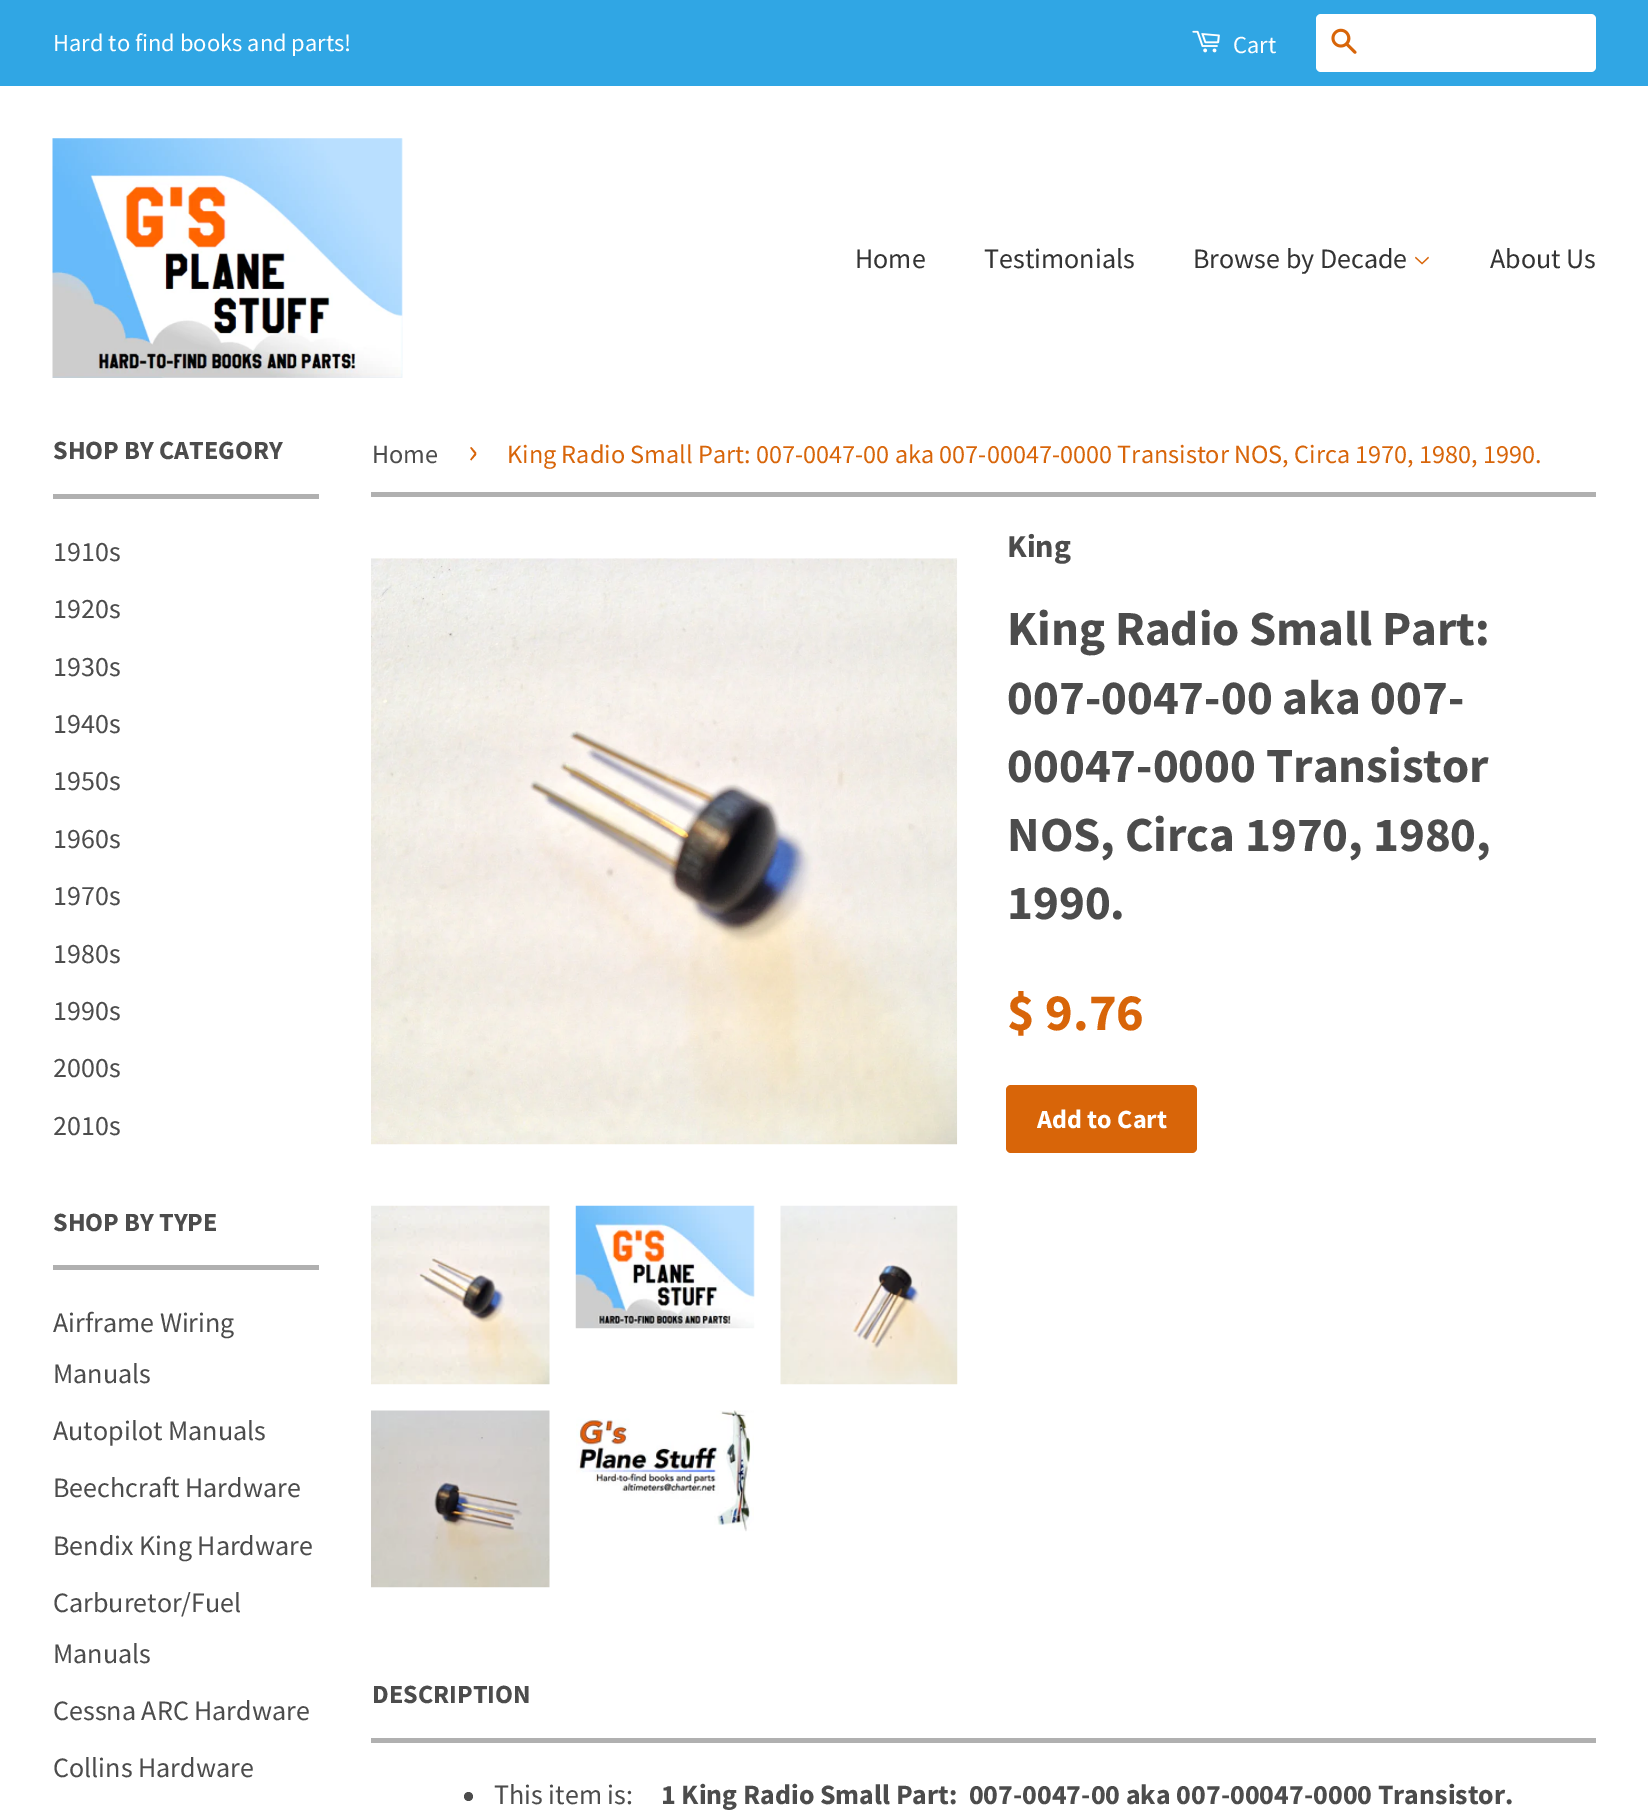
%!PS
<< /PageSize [1648 1819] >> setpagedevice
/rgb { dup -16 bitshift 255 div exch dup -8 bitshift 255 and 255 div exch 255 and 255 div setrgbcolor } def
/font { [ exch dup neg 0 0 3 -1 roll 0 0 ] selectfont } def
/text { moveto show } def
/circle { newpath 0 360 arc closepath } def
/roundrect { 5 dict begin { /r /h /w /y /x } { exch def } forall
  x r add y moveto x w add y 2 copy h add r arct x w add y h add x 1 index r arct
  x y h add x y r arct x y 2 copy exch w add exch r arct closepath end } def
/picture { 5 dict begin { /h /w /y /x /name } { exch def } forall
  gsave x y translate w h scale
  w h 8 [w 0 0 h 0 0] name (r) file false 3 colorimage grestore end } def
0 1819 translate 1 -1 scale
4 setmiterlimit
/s1 { /SourceSansPro-Regular 24.5 font 16#FFFFFF rgb } def
/s2 { /SourceSansPro-Regular 28 font 16#333333 rgb } def
/s3 { /SourceSansPro-Bold 26.25 font 16#4C4C4C rgb } def
/s4 { /SourceSansPro-Regular 28 font 16#4C4C4C rgb } def
/s5 { /SourceSansPro-Regular 26.25 font 16#4C4C4C rgb } def
/s6 { /SourceSansPro-Regular 37 font 16#D86509 rgb } def
/s7 { /SourceSansPro-Regular 26.25 font 16#D86509 rgb } def
/s8 { /SourceSansPro-Bold 32 font 16#4C4C4C rgb } def
/s9 { /SourceSansPro-Bold 49 font 16#4C4C4C rgb } def
/s10 { /SourceSansPro-Bold 52.5 font 16#D86509 rgb } def
/s11 { /SourceSansPro-Bold 26.25 font 16#FFFFFF rgb } def
/s12 { /SourceSansPro-Bold 28 font 16#4C4C4C rgb } def
16#FFFFFF rgb
0 0 1648 1819 rectfill
16#30A6E4 rgb
0 0 1648 86 rectfill
s1
(Hard to find books and parts!) 53 51 text
(pic1.raw) 1192 30 28 23 picture
(Cart) 1233 53 text
1316 14 280 58 5 roundrect fill
(pic2.raw) 1331 28 26 26 picture
(pic3.raw) 52 138 351 240 picture
s2
(Home) 855 268 text
(Testimonials) 984 268 text
(Browse by Decade) 1193 268 text
(pic4.raw) 1415 256 14 9 picture
(About Us) 1490 268 text
16#B0B0B0 rgb
53 494 266 5 rectfill
s3
(SHOP BY CATEGORY) 53 459 text
s4
(1910s) 53 561 text
(1920s) 53 618 text
(1930s) 53 676 text
(1940s) 53 733 text
(1950s) 53 790 text
(1960s) 53 848 text
(1970s) 53 905 text
(1980s) 53 963 text
(1990s) 53 1020 text
(2000s) 53 1077 text
(2010s) 53 1135 text
16#B0B0B0 rgb
53 1265 266 5 rectfill
s3
(SHOP BY TYPE) 53 1231 text
s4
(Airframe Wiring) 53 1332 text
(Manuals) 53 1383 text
(Autopilot Manuals) 53 1440 text
(Beechcraft Hardware) 53 1497 text
(Bendix King Hardware) 53 1555 text
(Carburetor/Fuel) 53 1612 text
(Manuals) 53 1663 text
(Cessna ARC Hardware) 53 1720 text
(Collins Hardware) 53 1777 text
16#B0B0B0 rgb
371 492 1225 5 rectfill
s5
(Home) 372 463 text
s6
(›) 468 463 text
s7
(King Radio Small Part: 007-0047-00 aka 007-00047-0000 Transistor NOS, Circa 1970, 1980, 1990.) 507 463 text
(pic5.raw) 371 558 587 587 picture
s8
(King) 1007 557 text
s9
(King Radio Small Part:) 1007 645 text
(007-0047-00 aka 007-) 1007 714 text
(00047-0000 Transistor) 1007 782 text
(NOS, Circa 1970, 1980,) 1007 851 text
(1990.) 1007 919 text
s10
($ 9.76) 1007 1030 text
1006 1085 191 68 5 roundrect fill
s11
(Add to Cart) 1037 1128 text
(pic6.raw) 371 1205 179 180 picture
(pic7.raw) 575 1205 180 124 picture
(pic8.raw) 780 1205 178 180 picture
(pic9.raw) 371 1410 179 178 picture
(pic10.raw) 576 1410 178 122 picture
16#B0B0B0 rgb
371 1738 1225 5 rectfill
s3
(DESCRIPTION) 372 1703 text
468.5 1796.5 4.5 circle fill
s4
(This item is:) 494 1804 text
s12
(1 King Radio Small Part:  007-0047-00 aka 007-00047-0000 Transistor.) 661 1804 text
showpage
